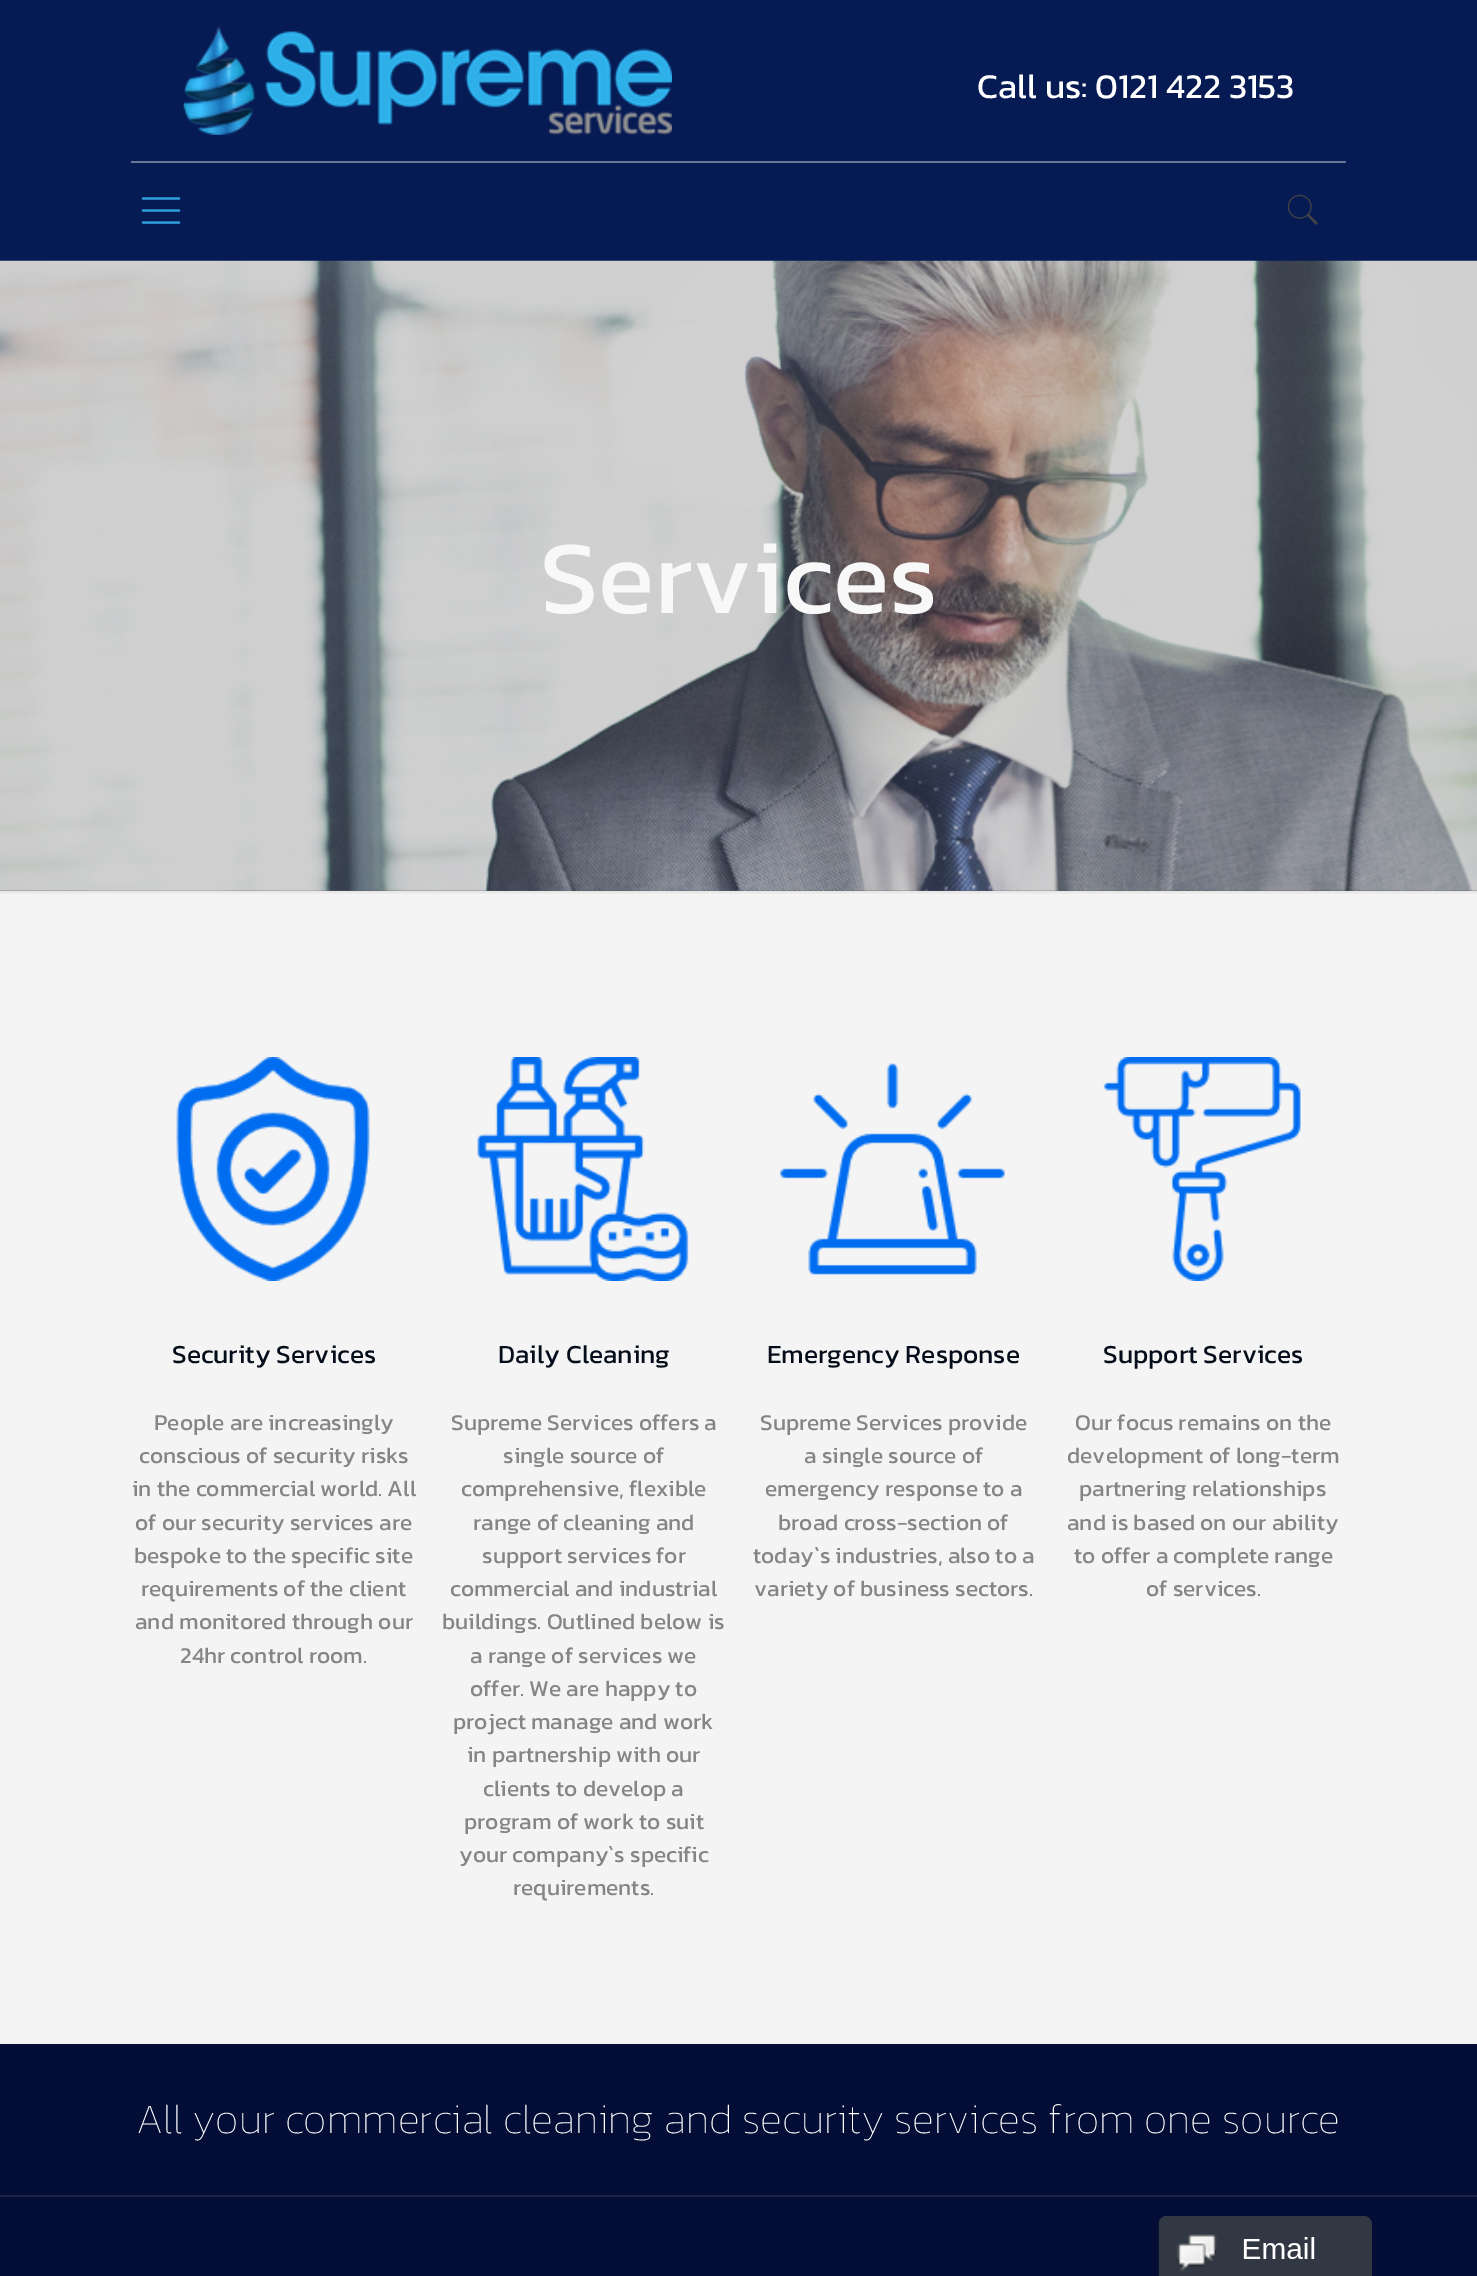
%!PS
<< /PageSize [1477 2276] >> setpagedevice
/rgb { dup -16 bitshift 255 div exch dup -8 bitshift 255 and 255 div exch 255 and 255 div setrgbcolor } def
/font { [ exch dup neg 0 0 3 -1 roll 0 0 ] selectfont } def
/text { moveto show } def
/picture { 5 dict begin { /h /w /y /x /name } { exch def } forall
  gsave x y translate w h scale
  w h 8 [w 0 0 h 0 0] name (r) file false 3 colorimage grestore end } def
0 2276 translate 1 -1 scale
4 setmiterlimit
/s1 { /Kanit-Regular 35 font 16#FFFFFF rgb } def
/s2 { /Kanit-Regular 105 font 16#F8F8F8 rgb } def
/s3 { /Kanit-Regular 26.25 font 16#040D19 rgb } def
/s4 { /Kanit-Regular 22.75 font 16#858586 rgb } def
/s5 { /Kanit-Thin 42 font 16#FFFFFF rgb } def
16#FFFFFF rgb
0 0 1477 2276 rectfill
(pic1.raw) 0 890 1477 1 picture
16#061A54 rgb
0 0 1477 261 rectfill
16#6A7698 rgb
131 161 1215 2 rectfill
(pic2.raw) 183 26 489 109 picture
s1
(Call us: 0121 422 3153) 977 98 text
(pic3.raw) 141 197 40 27 picture
(pic4.raw) 1287 194 31 31 picture
(pic5.raw) 0 260 1477 631 picture
s2
(Services) 540 613 text
16#F4F4F4 rgb
0 891 1477 1153 rectfill
(pic6.raw) 0 891 1477 3 picture
(pic7.raw) 176 1057 194 224 picture
s3
(Security Services) 172 1363 text
s4
(People are increasingly) 154 1430 text
(conscious of security risks) 139 1463 text
(in the commercial world. All) 132 1496 text
(of our security services are) 135 1530 text
(bespoke to the specific site) 134 1563 text
(requirements of the client) 141 1596 text
(and monitored through our) 135 1629 text
(24hr control room.) 180 1663 text
(pic8.raw) 477 1057 212 224 picture
s3
(Daily Cleaning) 498 1363 text
s4
(Supreme Services offers a) 451 1430 text
(single source of) 503 1463 text
(comprehensive, flexible) 461 1496 text
(range of cleaning and) 473 1530 text
(support services for) 482 1563 text
(commercial and industrial) 450 1596 text
(buildings. Outlined below is) 442 1629 text
(a range of services we) 470 1663 text
(offer. We are happy to) 470 1696 text
(project manage and work) 453 1729 text
(in partnership with our) 467 1762 text
(clients to develop a) 483 1796 text
(program of work to suit) 464 1829 text
(your company`s specific) 459 1862 text
(requirements.) 513 1895 text
(pic9.raw) 780 1063 225 212 picture
s3
(Emergency Response) 767 1363 text
s4
(Supreme Services provide) 760 1430 text
(a single source of) 804 1463 text
(emergency response to a) 765 1496 text
(broad cross-section of) 778 1530 text
(today`s industries, also to a) 753 1563 text
(variety of business sectors.) 754 1596 text
(pic10.raw) 1103 1057 198 224 picture
s3
(Support Services) 1103 1363 text
s4
(Our focus remains on the) 1075 1430 text
(development of long-term) 1067 1463 text
(partnering relationships) 1079 1496 text
(and is based on our ability) 1067 1530 text
(to offer a complete range) 1074 1563 text
(of services.) 1146 1596 text
16#030D35 rgb
0 2044 1477 232 rectfill
16#1C2549 rgb
0 2195 1477 2 rectfill
s5
(All your commercial cleaning and security services from one source) 136 2133 text
(pic11.raw) 1158 2216 214 60 picture
showpage
